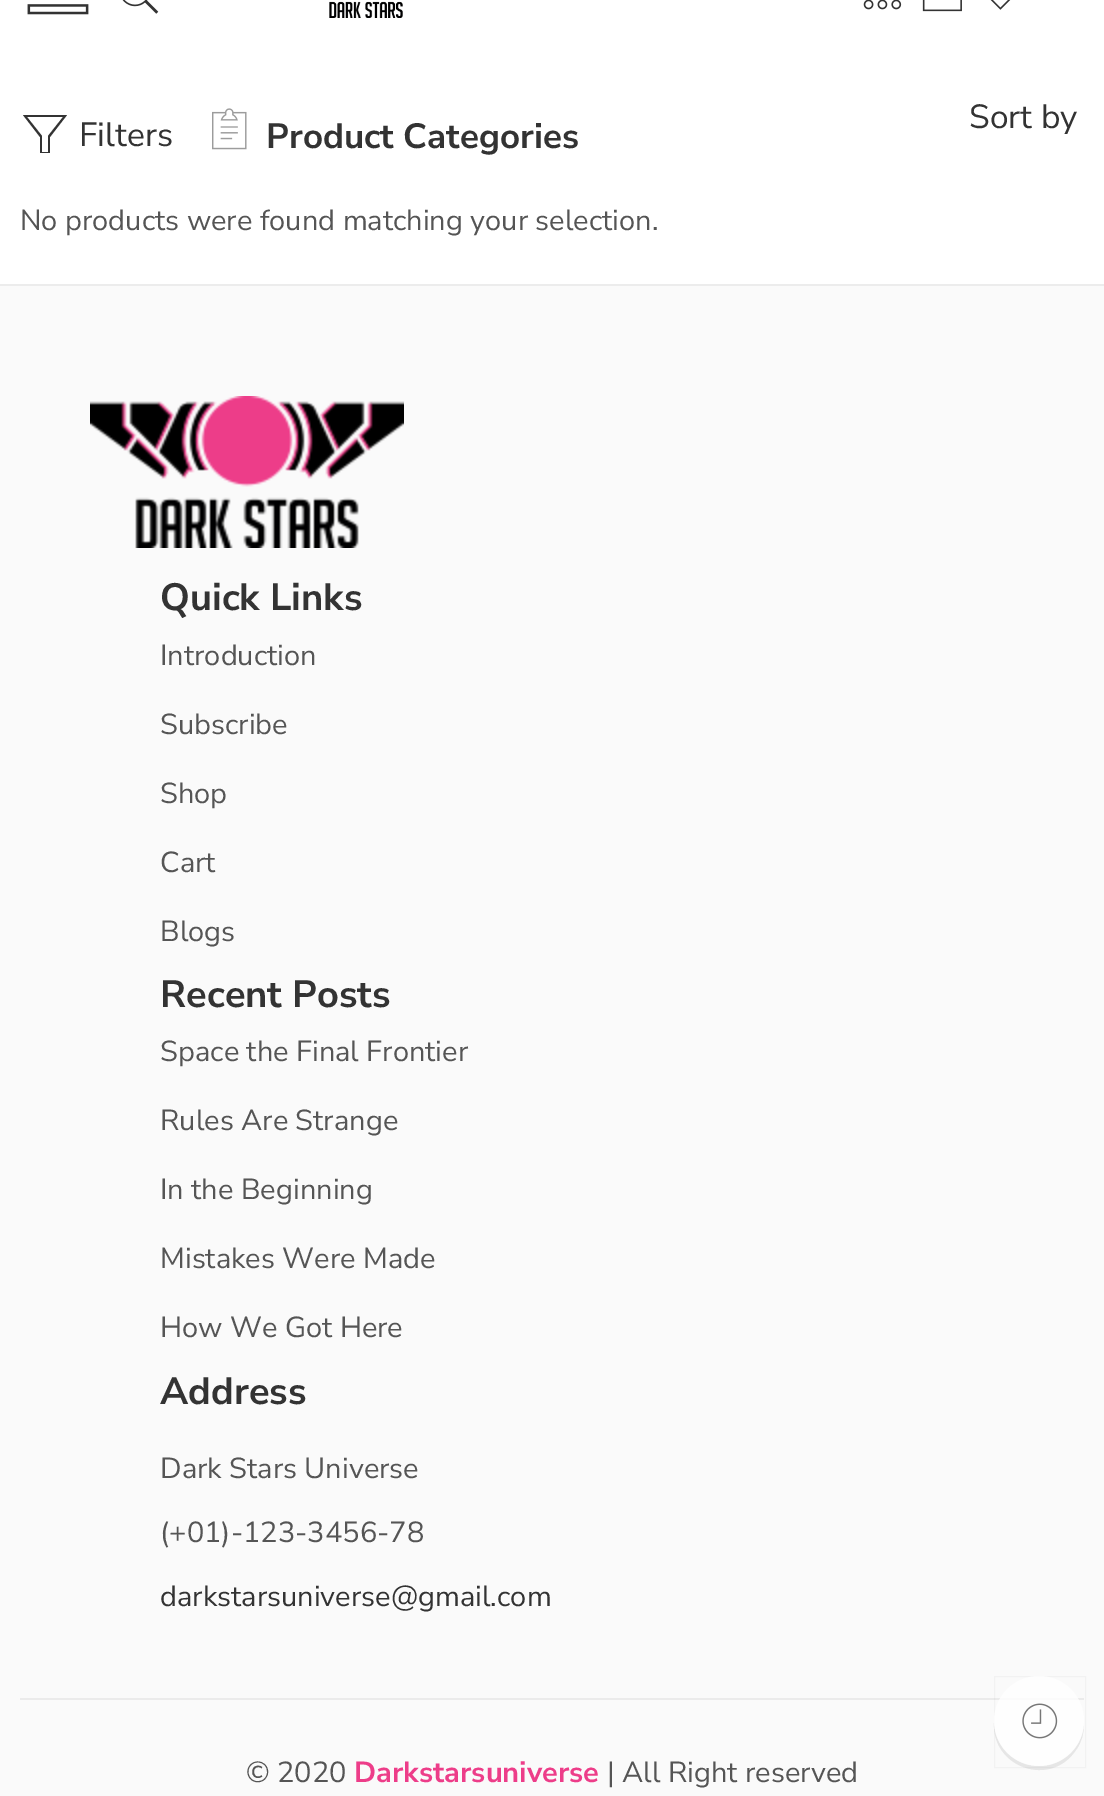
%!PS
<< /PageSize [1104 1796] /PageUsesTransparency true >> setpagedevice
/rgb { dup -16 bitshift 255 div exch dup -8 bitshift 255 and 255 div exch 255 and 255 div setrgbcolor } def
/font { [ exch dup neg 0 0 3 -1 roll 0 0 ] selectfont } def
/text { moveto show } def
/alpha { dup .setfillconstantalpha .setstrokeconstantalpha } def
/circle { newpath 0 360 arc closepath } def
/picture { 5 dict begin { /h /w /y /x /name } { exch def } forall
  gsave x y translate w h scale
  w h 8 [w 0 0 h 0 0] name (r) file false 3 colorimage grestore end } def
0 .pushpdf14devicefilter
0 1796 translate 1 -1 scale
4 setmiterlimit
/s1 { /NunitoSans-Regular 33.5 font 16#333333 rgb } def
/s2 { /NunitoSans-Bold 35 font 16#333333 rgb } def
/s3 { /NunitoSans-Regular 29 font 16#555555 rgb } def
/s4 { /NunitoSans-Bold 38 font 16#333333 rgb } def
/s5 { /NunitoSans-Regular 29 font 16#333333 rgb } def
/s6 { /NunitoSans-Bold 29 font 16#ED3D89 rgb } def
16#FFFFFF rgb
0 0 1104 1796 rectfill
(pic1.raw) 27 4 62 11 picture
(pic2.raw) 122 0 37 14 picture
(pic3.raw) 329 1 74 17 picture
(pic4.raw) 863 0 39 10 picture
(pic5.raw) 922 0 40 12 picture
(pic6.raw) 990 0 21 10 picture
s1
(Sort by) 969 128 text
50 153 moveto 40 153 lineto 40 137 lineto 23 115 lineto 67 115 lineto 50 137 lineto closepath 42 152 moveto 48 152 lineto 48 136 lineto 63 117 lineto 27 117 lineto 42 136 lineto closepath fill
(Filters) 79 146 text
(pic7.raw) 212 108 35 42 picture
s2
(Product Categories) 266 148 text
s3
(No products were found matching your selection.) 20 230 text
16#FAFAFA rgb
0 286 1104 1510 rectfill
16#ECECEC rgb
0 284 1104 2 rectfill
(pic8.raw) 90 396 314 152 picture
s4
(Quick Links) 160 610 text
s3
(Introduction) 160 665 text
(Subscribe) 160 734 text
(Shop) 160 803 text
(Cart) 160 872 text
(Blogs) 160 941 text
s4
(Recent Posts) 160 1007 text
s3
(Space the Final Frontier) 160 1061 text
(Rules Are Strange) 160 1130 text
(In the Beginning) 160 1199 text
(Mistakes Were Made) 160 1268 text
(How We Got Here) 160 1337 text
s4
(Address) 160 1404 text
s3
(Dark Stars Universe) 160 1478 text
(\(+01\)-123-3456-78) 160 1542 text
s5
(darkstarsuniverse@gmail.com) 160 1606 text
16#EBEBEB rgb
20 1698 1064 2 rectfill
s3
(© 2020) 246 1782 text
s6
(Darkstarsuniverse) 354 1782 text
s3
(| All Right reserved) 607 1782 text
0.03 alpha
16#000000 rgb
994.5 1676.5 91 91 rectstroke
0.08 alpha
994 1723 moveto 992 1768 1051 1788 1076 1750 curveto 1082 1742 1084 1733 1084 1723 curveto 1083 1747 1063 1766 1039 1766 curveto 1015 1766 995 1747 994 1723 curveto closepath fill
0.8 alpha
16#FFFFFF rgb
1039 1721 45 circle fill
1 alpha
(pic9.raw) 1022 1703 36 36 picture
.poppdf14devicefilter showpage
